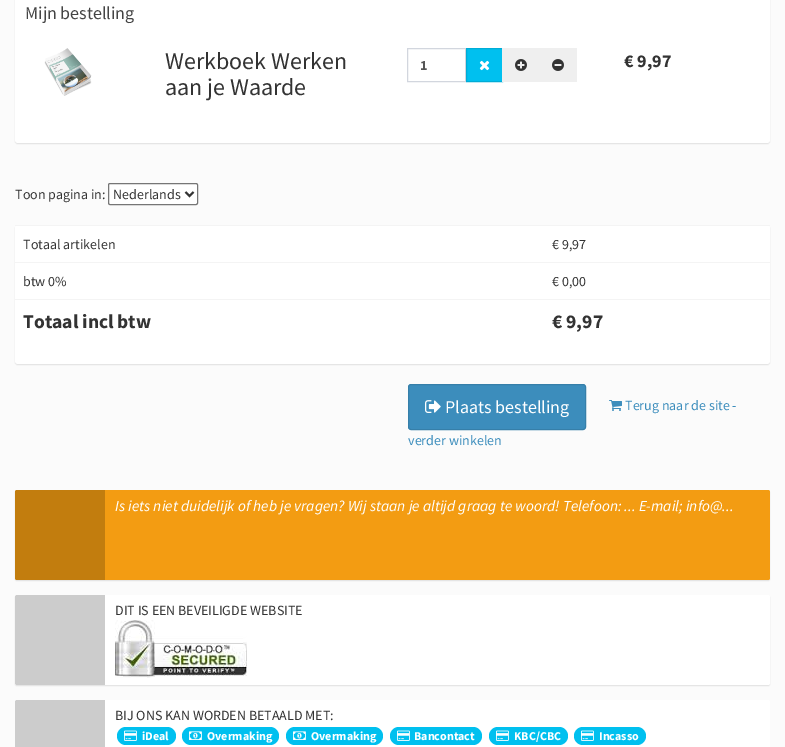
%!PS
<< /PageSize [785 747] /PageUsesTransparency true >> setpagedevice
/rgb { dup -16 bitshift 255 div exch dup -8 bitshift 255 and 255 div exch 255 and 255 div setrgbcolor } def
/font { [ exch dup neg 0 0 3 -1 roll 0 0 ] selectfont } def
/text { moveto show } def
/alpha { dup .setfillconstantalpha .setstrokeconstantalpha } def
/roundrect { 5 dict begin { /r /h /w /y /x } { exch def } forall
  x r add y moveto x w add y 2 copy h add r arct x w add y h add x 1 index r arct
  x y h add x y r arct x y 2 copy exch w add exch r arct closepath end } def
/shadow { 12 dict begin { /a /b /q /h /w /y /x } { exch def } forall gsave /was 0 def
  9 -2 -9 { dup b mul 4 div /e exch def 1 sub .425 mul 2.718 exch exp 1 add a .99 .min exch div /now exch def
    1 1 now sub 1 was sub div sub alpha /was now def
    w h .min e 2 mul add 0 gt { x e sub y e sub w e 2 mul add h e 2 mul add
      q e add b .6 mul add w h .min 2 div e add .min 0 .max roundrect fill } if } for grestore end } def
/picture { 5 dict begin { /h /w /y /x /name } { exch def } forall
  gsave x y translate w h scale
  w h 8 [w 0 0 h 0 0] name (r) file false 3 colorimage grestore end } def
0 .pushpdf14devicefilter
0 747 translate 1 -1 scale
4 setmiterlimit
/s1 { /SourceSansPro-Regular 18 font 16#444444 rgb } def
/s2 { /SourceSansPro-Regular 24 font 16#333333 rgb } def
/s3 { /SourceSansPro-Bold 14 font 16#555555 rgb } def
/s4 { /SourceSansPro-Bold 18 font 16#333333 rgb } def
/s5 { /SourceSansPro-Regular 14 font 16#333333 rgb } def
/s6 { /SourceSansPro-Bold 19.5 font 16#333333 rgb } def
/s7 { /SourceSansPro-Regular 14 font 16#3C8DBC rgb } def
/s8 { /SourceSansPro-Regular 18 font 16#FFFFFF rgb } def
/s9 { /SourceSansPro-Italic 15.4 font 16#FFFFFF rgb } def
/s10 { /SourceSansPro-Bold 12 font 16#FFFFFF rgb } def
16#FBFBFB rgb
0 0 785 747 rectfill
16#000000 rgb
15 -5 755 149 3 0.5 0.1 shadow
16#FFFFFF rgb
15 -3 755 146 3 roundrect fill
s1
(Mijn bestelling) 25 19 text
(pic1.raw) 44 48 48 48 picture
s2
(Werkboek Werken) 165 69 text
(aan je Waarde) 165 95 text
16#D2D6DE rgb
407.5 48.5 58 33 rectstroke
s3
(1) 420 70 text
16#00C0EF rgb
466.5 48.5 moveto 502.5 48.5 lineto 502.5 81.5 lineto 466.5 81.5 lineto closepath gsave fill grestore
16#00ACD6 rgb
stroke
(pic2.raw) 479 60 11 11 picture
16#EFEFEF rgb
502 48 75 34 rectfill
(pic3.raw) 515 59 12 12 picture
(pic4.raw) 552 59 12 12 picture
s4
(€ 9,97) 624 67 text
s5
(Toon pagina in:) 15 199 text
16#FFFFFF rgb
108.5 183.5 89 21 1.5 roundrect gsave fill grestore
16#767676 rgb
stroke
16#333333 rgb
2 setlinewidth
185.5 192 moveto 189.5 196 lineto 193.5 192 lineto stroke
(Nederlands) 113 199 text
16#000000 rgb
15 226 755 139 3 0.5 0.1 shadow
16#FFFFFF rgb
15 225 755 139 3 roundrect fill
s5
(Totaal artikelen) 23 249 text
16#F4F4F4 rgb
15 225 755 1 rectfill
s5
(€ 9,97) 552 249 text
(btw 0%) 23 286 text
16#F4F4F4 rgb
15 262 755 1 rectfill
s5
(€ 0,00) 552 286 text
s6
(Totaal incl btw) 23 328 text
16#F4F4F4 rgb
15 299 755 1 rectfill
s6
(€ 9,97) 552 328 text
(pic5.raw) 609 400 13 11 picture
s7
(Terug naar de site -) 625 410 text
(verder winkelen) 408 445 text
408.5 384.5 177 45 2.5 roundrect gsave fill grestore
16#367FA9 rgb
1 setlinewidth
stroke
(pic6.raw) 425 400 16 13 picture
s8
(Plaats bestelling) 445 413 text
16#000000 rgb
15 491 755 90 2 0.5 0.1 shadow
16#F39C12 rgb
15 490 755 90 2 roundrect fill
0.2 alpha
16#000000 rgb
17 490 moveto 105 490 lineto 105 580 lineto 17 580 lineto 16 580 15 579 15 578 curveto 15 492 lineto 15 491 16 490 17 490 curveto closepath fill
1 alpha
s9
(Is iets niet duidelijk of heb je vragen? Wij staan je altijd graag te woord! Telefoon: ... E-mail; info@...) 115 511 text
16#000000 rgb
15 596 755 90 2 0.5 0.1 shadow
16#FFFFFF rgb
15 595 755 90 2 roundrect fill
16#CCCCCC rgb
17 595 moveto 105 595 lineto 105 685 lineto 17 685 lineto 16 685 15 684 15 683 curveto 15 597 lineto 15 596 16 595 17 595 curveto closepath fill
s5
(DIT IS EEN BEVEILIGDE WEBSITE) 115 615 text
(pic7.raw) 115 620 132 58 picture
16#FFFFFF rgb
15 700 755 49 2 roundrect fill
16#CCCCCC rgb
17 700 moveto 105 700 lineto 105 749 lineto 17 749 lineto 16 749 15 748 15 747 curveto 15 702 lineto 15 701 16 700 17 700 curveto closepath fill
s5
(BIJ ONS KAN WORDEN BETAALD MET:) 115 720 text
16#00C0EF rgb
117 727 59 18 9 roundrect fill
(pic8.raw) 124 730 13 11 picture
s10
(iDeal) 142 740 text
16#00C0EF rgb
182 727 97 18 9 roundrect fill
(pic9.raw) 189 731 13 9 picture
s10
(Overmaking) 207 740 text
16#00C0EF rgb
286 727 97 18 9 roundrect fill
(pic9.raw) 293 731 13 9 picture
s10
(Overmaking) 311 740 text
16#00C0EF rgb
390 727 92 18 9 roundrect fill
(pic8.raw) 397 730 13 11 picture
s10
(Bancontact) 414 740 text
16#00C0EF rgb
489 727 79 18 9 roundrect fill
(pic8.raw) 496 730 13 11 picture
s10
(KBC/CBC) 514 740 text
16#00C0EF rgb
574 727 72 18 9 roundrect fill
(pic8.raw) 581 730 13 11 picture
s10
(Incasso) 599 740 text
.poppdf14devicefilter showpage
